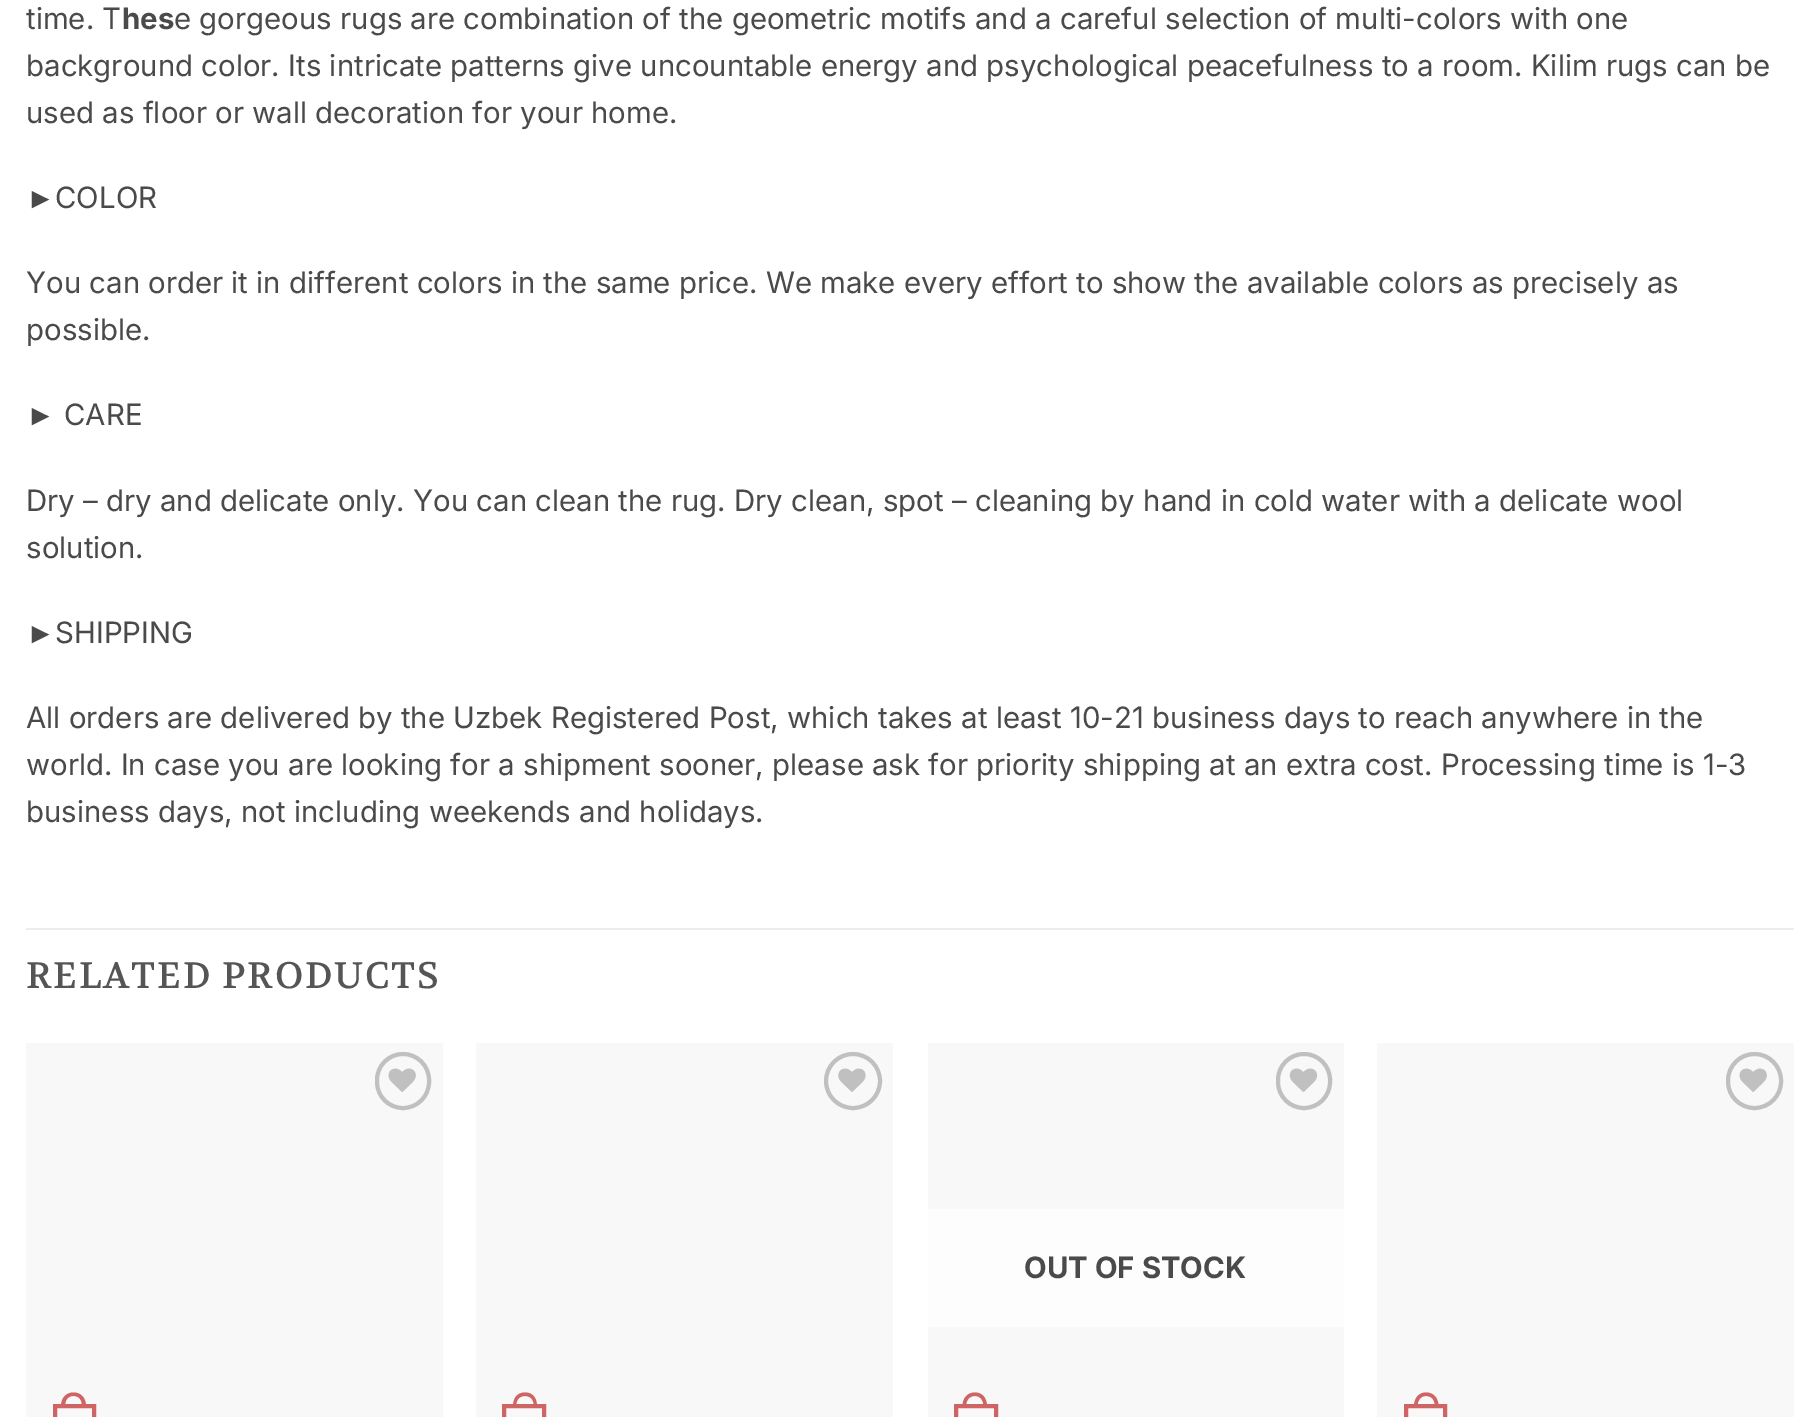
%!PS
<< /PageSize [1820 1417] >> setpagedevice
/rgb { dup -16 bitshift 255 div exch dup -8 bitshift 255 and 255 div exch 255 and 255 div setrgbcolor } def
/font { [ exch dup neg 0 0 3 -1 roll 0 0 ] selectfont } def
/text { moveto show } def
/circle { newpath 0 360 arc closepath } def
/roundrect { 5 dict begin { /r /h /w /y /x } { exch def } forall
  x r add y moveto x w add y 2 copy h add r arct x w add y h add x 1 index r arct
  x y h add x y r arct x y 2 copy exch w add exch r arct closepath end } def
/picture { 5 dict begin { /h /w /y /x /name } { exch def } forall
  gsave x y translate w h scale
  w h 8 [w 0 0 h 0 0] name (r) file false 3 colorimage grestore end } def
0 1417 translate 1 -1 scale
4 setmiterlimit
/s1 { /Inter-Regular 29.4 font 16#4A4A4A rgb } def
/s2 { /Inter-Bold 29.4 font 16#4A4A4A rgb } def
/s3 { /LiberationSans-Regular 29.4 font 16#4A4A4A rgb } def
16#FFFFFF rgb
0 0 1820 1417 rectfill
s1
(time. T) 26 29 text
s2
(hes) 122 29 text
s1
(e gorgeous rugs are combination of the geometric motifs and a careful selection of multi-colors with one) 174 29 text
(background color. Its intricate patterns give uncountable energy and psychological peacefulness to a room. Kilim rugs can be) 26 76 text
(used as floor or wall decoration for your home.) 26 123 text
s3
(►) 26 208 text
s1
(COLOR) 55 208 text
(You can order it in different colors in the same price. We make every effort to show the available colors as precisely as) 26 293 text
(possible.) 26 340 text
s3
(►) 26 425 text
s1
(CARE) 64 425 text
(Dry – dry and delicate only. You can clean the rug. Dry clean, spot – cleaning by hand in cold water with a delicate wool) 26 511 text
(solution.) 26 558 text
s3
(►) 26 643 text
s1
(SHIPPING) 55 643 text
(All orders are delivered by the Uzbek Registered Post, which takes at least 10-21 business days to reach anywhere in the) 26 728 text
(world. In case you are looking for a shipment sooner, please ask for priority shipping at an extra cost. Processing time is 1-3) 26 775 text
(business days, not including weekends and holidays.) 26 822 text
16#ECECEC rgb
26 928 1768 2 rectfill
/Volkhov-Regular 36.75 font
16#555555 rgb
26 988 moveto 1.8 0 (RELATED PRODUCTS) ashow
16#F8F8F8 rgb
26 1043 417 374 rectfill
16#C0C0C0 rgb
4 setlinewidth
377 1054 52 54 26 roundrect stroke
(pic1.raw) 388 1068 28 24 picture
16#CF6464 rgb
55 1406 39 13 rectstroke
73.5 1392.5 moveto 82 1392.5 86 1399 86 1406.5 curveto 61 1406.5 lineto 61 1399 65 1392.5 73.5 1392.5 curveto closepath 73.5 1396 moveto 80 1396 82 1401 82 1406.5 curveto 65 1406.5 lineto 65 1401 67 1396 73.5 1396 curveto closepath eofill
16#F8F8F8 rgb
476 1043 417 374 rectfill
16#C0C0C0 rgb
853 1081 27 circle stroke
(pic2.raw) 838 1068 28 24 picture
16#CF6464 rgb
504 1406 40 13 rectstroke
525 1392.5 moveto 533.5 1392.5 537 1399 537 1406.5 curveto 513 1406.5 lineto 513 1399 516.5 1392.5 525 1392.5 curveto closepath 525 1396 moveto 531.5 1396 534 1401 534 1406.5 curveto 516 1406.5 lineto 516 1401 518.5 1396 525 1396 curveto closepath eofill
16#F8F8F8 rgb
928 1043 416 374 rectfill
16#C0C0C0 rgb
1278 1054 52 54 26 roundrect stroke
(pic3.raw) 1289 1068 29 24 picture
16#FDFDFD rgb
928 1209 416 118 rectfill
s2
(OUT OF STOCK) 1024 1278 text
16#CF6464 rgb
956 1406 40 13 rectstroke
975 1392.5 moveto 983 1392.5 987 1399 987 1406.5 curveto 962.5 1406.5 lineto 962.5 1399 966.5 1392.5 975 1392.5 curveto closepath 975 1396 moveto 981 1396 983.5 1401 983.5 1406.5 curveto 966 1406.5 lineto 966 1401 968.5 1396 975 1396 curveto closepath eofill
16#F8F8F8 rgb
1377 1043 417 374 rectfill
16#C0C0C0 rgb
1728 1054 53 54 26.5 roundrect stroke
(pic1.raw) 1739 1068 28 24 picture
16#CF6464 rgb
1406 1406 39 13 rectstroke
1426 1392.5 moveto 1434.5 1392.5 1438.5 1399 1438.5 1406.5 curveto 1414 1406.5 lineto 1414 1399 1418 1392.5 1426 1392.5 curveto closepath 1426 1396 moveto 1432.5 1396 1435 1401 1435 1406.5 curveto 1417.5 1406.5 lineto 1417.5 1401 1420 1396 1426 1396 curveto closepath eofill
showpage
